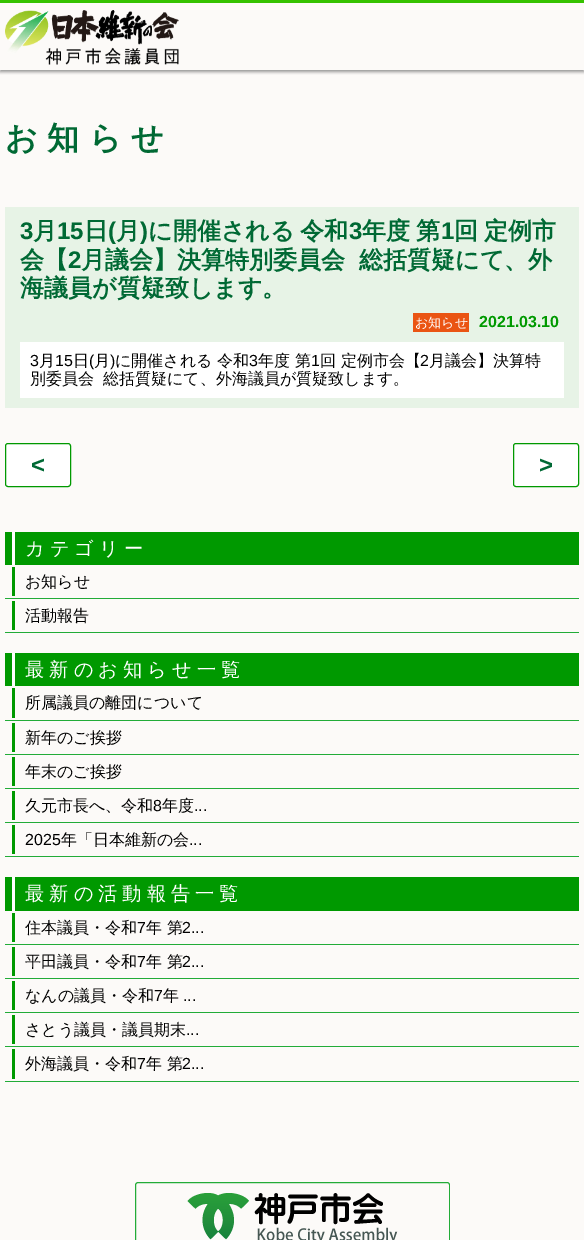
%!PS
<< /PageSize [584 1240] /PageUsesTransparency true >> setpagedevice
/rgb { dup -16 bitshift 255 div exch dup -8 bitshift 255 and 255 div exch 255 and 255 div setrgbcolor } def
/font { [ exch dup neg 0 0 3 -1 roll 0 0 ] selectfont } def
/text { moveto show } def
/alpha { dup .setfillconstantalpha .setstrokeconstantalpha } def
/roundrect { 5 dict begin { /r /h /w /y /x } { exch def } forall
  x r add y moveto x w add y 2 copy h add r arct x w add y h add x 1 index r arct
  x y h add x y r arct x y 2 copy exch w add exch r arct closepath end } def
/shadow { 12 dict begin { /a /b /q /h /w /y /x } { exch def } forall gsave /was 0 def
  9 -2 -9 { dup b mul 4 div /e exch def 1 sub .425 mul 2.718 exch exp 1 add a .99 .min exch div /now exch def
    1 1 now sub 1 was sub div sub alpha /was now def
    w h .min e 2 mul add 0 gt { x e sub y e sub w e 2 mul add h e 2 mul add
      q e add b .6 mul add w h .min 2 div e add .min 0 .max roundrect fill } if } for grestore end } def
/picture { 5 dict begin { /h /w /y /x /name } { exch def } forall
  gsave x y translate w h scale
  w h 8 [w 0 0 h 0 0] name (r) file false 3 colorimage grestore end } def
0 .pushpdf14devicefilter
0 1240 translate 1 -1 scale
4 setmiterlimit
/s1 { /LiberationSans-Bold 24 font 16#006934 rgb } def
/s2 { /WenQuanYiZenHei-Bold 24 font 16#006934 rgb } def
/s3 { /WenQuanYiZenHei-Medium 13 font 16#FFFFFF rgb } def
/s4 { /LiberationSans-Bold 16 font 16#009900 rgb } def
/s5 { /LiberationSans-Regular 16 font 16#000000 rgb } def
/s6 { /WenQuanYiZenHei-Medium 16 font 16#000000 rgb } def
16#FCFAF8 rgb
0 0 584 1240 rectfill
gsave
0 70 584 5 rectclip
16#999999 rgb
0 2 584 70 0 1.5 1 shadow
grestore
16#36C200 rgb
0 0 584 3 rectfill
(pic1.raw) 5 10 174 55 picture
/WenQuanYiZenHei-Bold 32 font
16#006934 rgb
5 149 moveto 9.5 0 (お知らせ) ashow
16#E7F3E6 rgb
5 207 574 201 rectfill
s1
(3) 20 239 text
s2
(月) 33 239 text
s1
(15) 57 239 text
s2
(日) 84 239 text
s1
(\() 108 239 text
s2
(月) 116 239 text
s1
(\)) 140 239 text
/WenQuanYiZenHei-Bold 24 font
148 239 moveto -1 0 32 (に開催される 令和) widthshow
s1
(3) 349 239 text
/WenQuanYiZenHei-Bold 24 font
362 239 moveto -1 0 32 (年度 第) widthshow
s1
(1) 441 239 text
/WenQuanYiZenHei-Bold 24 font
454 239 moveto -1 0 32 (回 定例市) widthshow
(会【) 20 268 text
s1
(2) 68 268 text
s2
(月議会】決算特別委員会) 81 268 text
(総括質疑にて、外) 359 268 text
(海議員が質疑致します。) 20 296 text
16#EA5413 rgb
413 313 56 19 rectfill
s3
(お知らせ) 415 327 text
s4
(2021.03.10) 479 327 text
16#FFFFFF rgb
20 342 544 56 rectfill
s5
(3) 30 366 text
s6
(月) 39 366 text
s5
(15) 55 366 text
s6
(日) 73 366 text
s5
(\() 89 366 text
s6
(月) 94 366 text
s5
(\)) 110 366 text
s6
(に開催される 令和) 115 366 text
s5
(3) 249 366 text
s6
(年度 第) 258 366 text
s5
(1) 311 366 text
s6
(回 定例市会【) 320 366 text
s5
(2) 420 366 text
s6
(月議会】決算特) 429 366 text
(別委員会) 30 384 text
(総括質疑にて、外海議員が質疑致します。) 103 384 text
16#FFFFFF rgb
5.5 443.5 65 43 2.5 roundrect gsave fill grestore
16#009900 rgb
stroke
s1
(<) 31 473 text
16#FFFFFF rgb
513.5 443.5 65 43 2.5 roundrect gsave fill grestore
16#009900 rgb
stroke
s1
(>) 539 473 text
16#009900 rgb
5 532 574 33 rectfill
16#FFFFFF rgb
12 532 3 33 rectfill
/WenQuanYiZenHei-Medium 19.25 font
25 555 moveto 5 0 (カテゴリー) ashow
16#22AC38 rgb
5 598 574 1 rectfill
16#009900 rgb
12 567 3 29 rectfill
s6
(お知らせ) 25 587 text
16#22AC38 rgb
5 632 574 1 rectfill
16#009900 rgb
12 601 3 29 rectfill
s6
(活動報告) 25 621 text
16#009900 rgb
5 653 574 33 rectfill
16#FFFFFF rgb
12 653 3 33 rectfill
/WenQuanYiZenHei-Medium 19.25 font
25 676 moveto 5 0 (最新のお知らせ一覧) ashow
16#22AC38 rgb
5 720 574 1 rectfill
16#009900 rgb
12 688 3 30 rectfill
s6
(所属議員の離団について) 25 708 text
16#22AC38 rgb
5 754 574 1 rectfill
16#009900 rgb
12 723 3 29 rectfill
s6
(新年のご挨拶) 25 743 text
16#22AC38 rgb
5 788 574 1 rectfill
16#009900 rgb
12 757 3 29 rectfill
s6
(年末のご挨拶) 25 777 text
16#22AC38 rgb
5 822 574 1 rectfill
16#009900 rgb
12 791 3 29 rectfill
s6
(久元市長へ、令和) 25 811 text
s5
(8) 153 811 text
s6
(年度) 162 811 text
s5
(...) 194 811 text
16#22AC38 rgb
5 856 574 1 rectfill
16#009900 rgb
12 825 3 29 rectfill
s5
(2025) 25 845 text
s6
(年「日本維新の会) 61 845 text
s5
(...) 189 845 text
16#009900 rgb
5 877 574 34 rectfill
16#FFFFFF rgb
12 877 3 34 rectfill
/WenQuanYiZenHei-Medium 19.25 font
25 900 moveto 5 0 (最新の活動報告一覧) ashow
16#22AC38 rgb
5 944 574 1 rectfill
16#009900 rgb
12 913 3 29 rectfill
s6
(住本議員・令和) 25 933 text
s5
(7) 137 933 text
s6
(年 第) 146 933 text
s5
(2...) 182 933 text
16#22AC38 rgb
5 978 574 1 rectfill
16#009900 rgb
12 947 3 29 rectfill
s6
(平田議員・令和) 25 967 text
s5
(7) 137 967 text
s6
(年 第) 146 967 text
s5
(2...) 182 967 text
16#22AC38 rgb
5 1012 574 1 rectfill
16#009900 rgb
12 981 3 29 rectfill
s6
(なんの議員・令和) 25 1001 text
s5
(7) 154 1001 text
s6
(年) 163 1001 text
s5
(...) 183 1001 text
16#22AC38 rgb
5 1046 574 1 rectfill
16#009900 rgb
12 1015 3 29 rectfill
s6
(さとう議員・議員期末) 25 1035 text
s5
(...) 186 1035 text
16#22AC38 rgb
5 1081 574 1 rectfill
16#009900 rgb
12 1049 3 30 rectfill
s6
(外海議員・令和) 25 1069 text
s5
(7) 137 1069 text
s6
(年 第) 146 1069 text
s5
(2...) 182 1069 text
(pic2.raw) 135 1182 315 58 picture
.poppdf14devicefilter showpage
